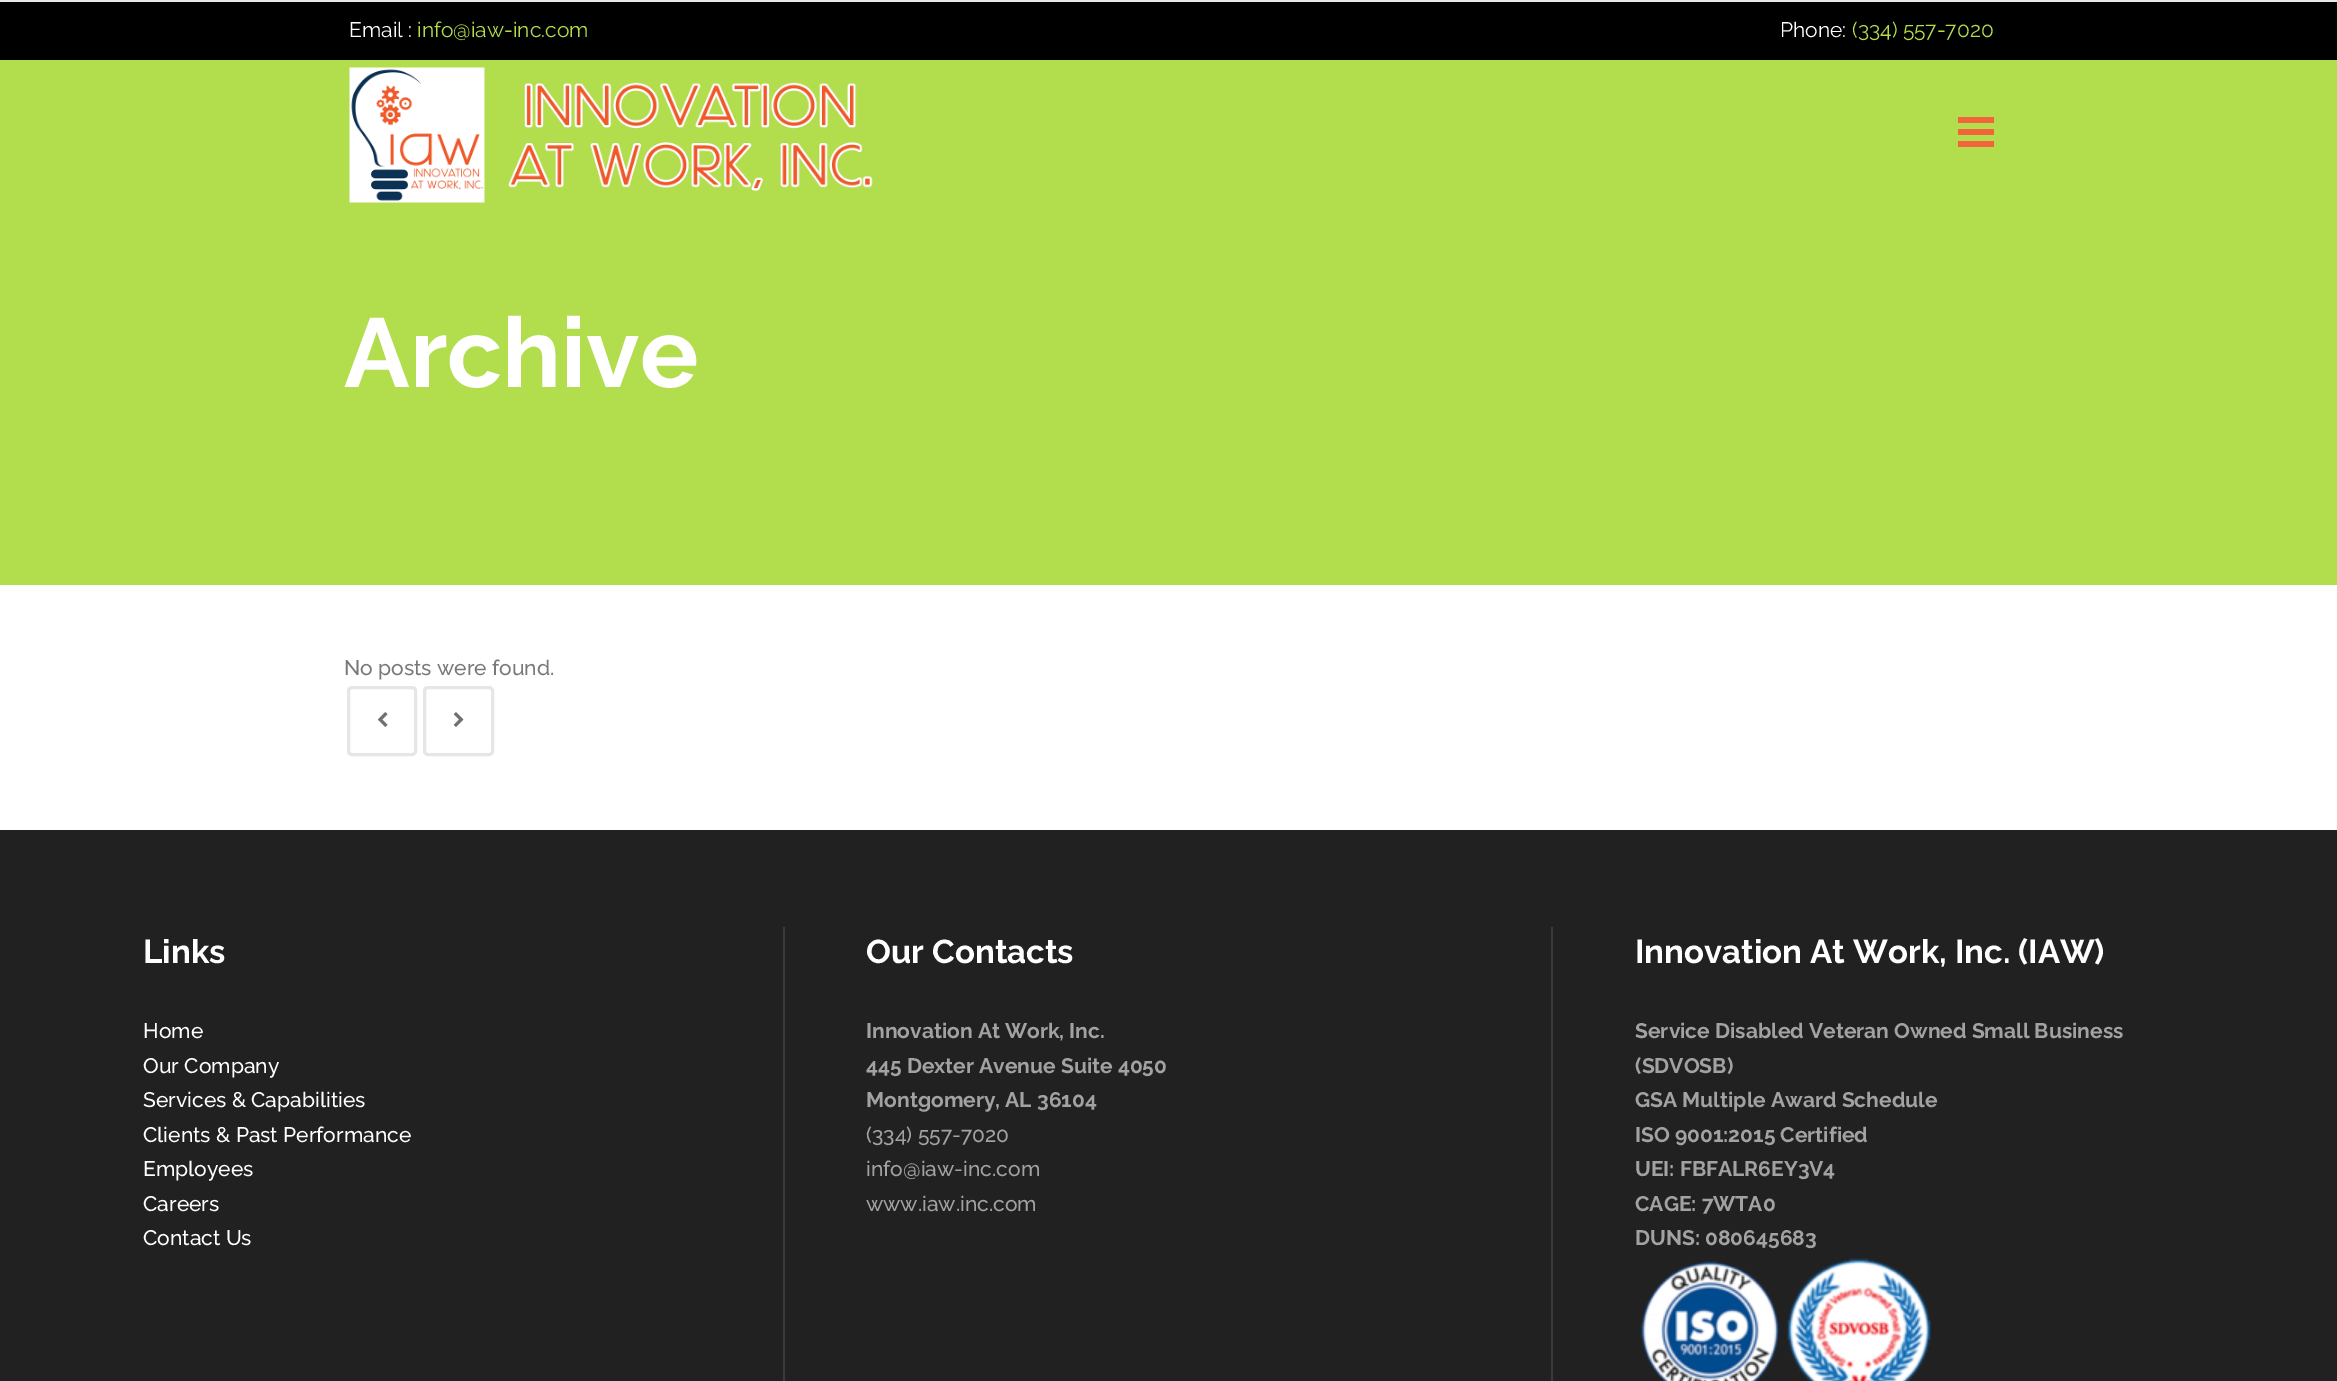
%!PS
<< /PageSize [2337 1381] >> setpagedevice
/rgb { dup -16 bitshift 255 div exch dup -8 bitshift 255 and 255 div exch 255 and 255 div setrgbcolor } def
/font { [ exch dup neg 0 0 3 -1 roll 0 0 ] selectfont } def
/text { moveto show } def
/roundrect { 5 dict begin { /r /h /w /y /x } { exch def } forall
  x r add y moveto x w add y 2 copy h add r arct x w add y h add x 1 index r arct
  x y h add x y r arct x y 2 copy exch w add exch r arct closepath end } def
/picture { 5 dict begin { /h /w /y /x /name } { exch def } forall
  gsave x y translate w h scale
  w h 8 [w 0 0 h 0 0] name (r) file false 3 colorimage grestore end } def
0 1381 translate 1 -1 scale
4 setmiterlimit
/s1 { /Raleway-Regular 21 font 16#FFFFFF rgb } def
/s2 { /Raleway-Regular 21 font 16#B2DD4C rgb } def
/s3 { /Raleway-Bold 97.5 font 16#FFFFFF rgb } def
/s4 { /Raleway-Medium 21 font 16#797979 rgb } def
/s5 { /Raleway-Bold 33 font 16#FFFFFF rgb } def
/s6 { /Raleway-Medium 21 font 16#FFFFFF rgb } def
/s7 { /Raleway-Bold 21 font 16#A2A2A2 rgb } def
/s8 { /Raleway-Medium 21 font 16#A2A2A2 rgb } def
16#FFFFFF rgb
0 0 2337 1381 rectfill
16#E7E7E7 rgb
0 0 2337 2 rectfill
16#B2DD4C rgb
0 60 2337 525 rectfill
(pic1.raw) 349 67 524 136 picture
16#F2653A rgb
1958 129 36 6 rectfill
1958 117 36 6 rectfill
1958 141 36 6 rectfill
16#000000 rgb
0 2 2337 58 rectfill
s1
(Email :) 349 37 text
s2
(info@iaw-inc.com) 417 37 text
s1
(Phone:) 1780 37 text
s2
(\(334\) 557-7020) 1852 37 text
s3
(Archive) 344 387 text
s4
(No posts were found.) 344 675 text
16#E6E6E6 rgb
3 setlinewidth
348.5 687.5 67 67 3.5 roundrect stroke
(pic2.raw) 378 712 10 15 picture
424.5 687.5 68 67 3.5 roundrect stroke
(pic3.raw) 453 712 11 15 picture
16#212121 rgb
0 830 2337 551 rectfill
16#3B3B3B rgb
783 927 2 454 rectfill
s5
(Links) 143 963 text
s6
(Home) 143 1038 text
(Our Company) 143 1073 text
(Services & Capabilities) 143 1107 text
(Clients & Past Performance) 143 1142 text
(Employees) 143 1176 text
(Careers) 143 1211 text
(Contact Us) 143 1245 text
16#3B3B3B rgb
1551 927 2 454 rectfill
s5
(Our Contacts) 866 963 text
s7
(Innovation At Work, Inc.) 866 1038 text
(445 Dexter Avenue Suite 4050) 866 1073 text
(Montgomery, AL 36104) 866 1107 text
s8
(\(334\) 557-7020) 866 1142 text
(info@iaw-inc.com) 866 1176 text
(www.iaw.inc.com) 866 1211 text
s5
(Innovation At Work, Inc. \(IAW\)) 1635 963 text
s7
(Service Disabled Veteran Owned Small Business) 1635 1038 text
(\(SDVOSB\)) 1635 1073 text
(GSA Multiple Award Schedule) 1635 1107 text
(ISO 9001:2015 Certified) 1635 1142 text
(UEI: FBFALR6EY3V4) 1635 1176 text
(CAGE: 7WTA0) 1635 1211 text
(DUNS: 080645683) 1635 1245 text
(pic4.raw) 1640 1261 140 120 picture
(pic5.raw) 1786 1258 145 123 picture
showpage
